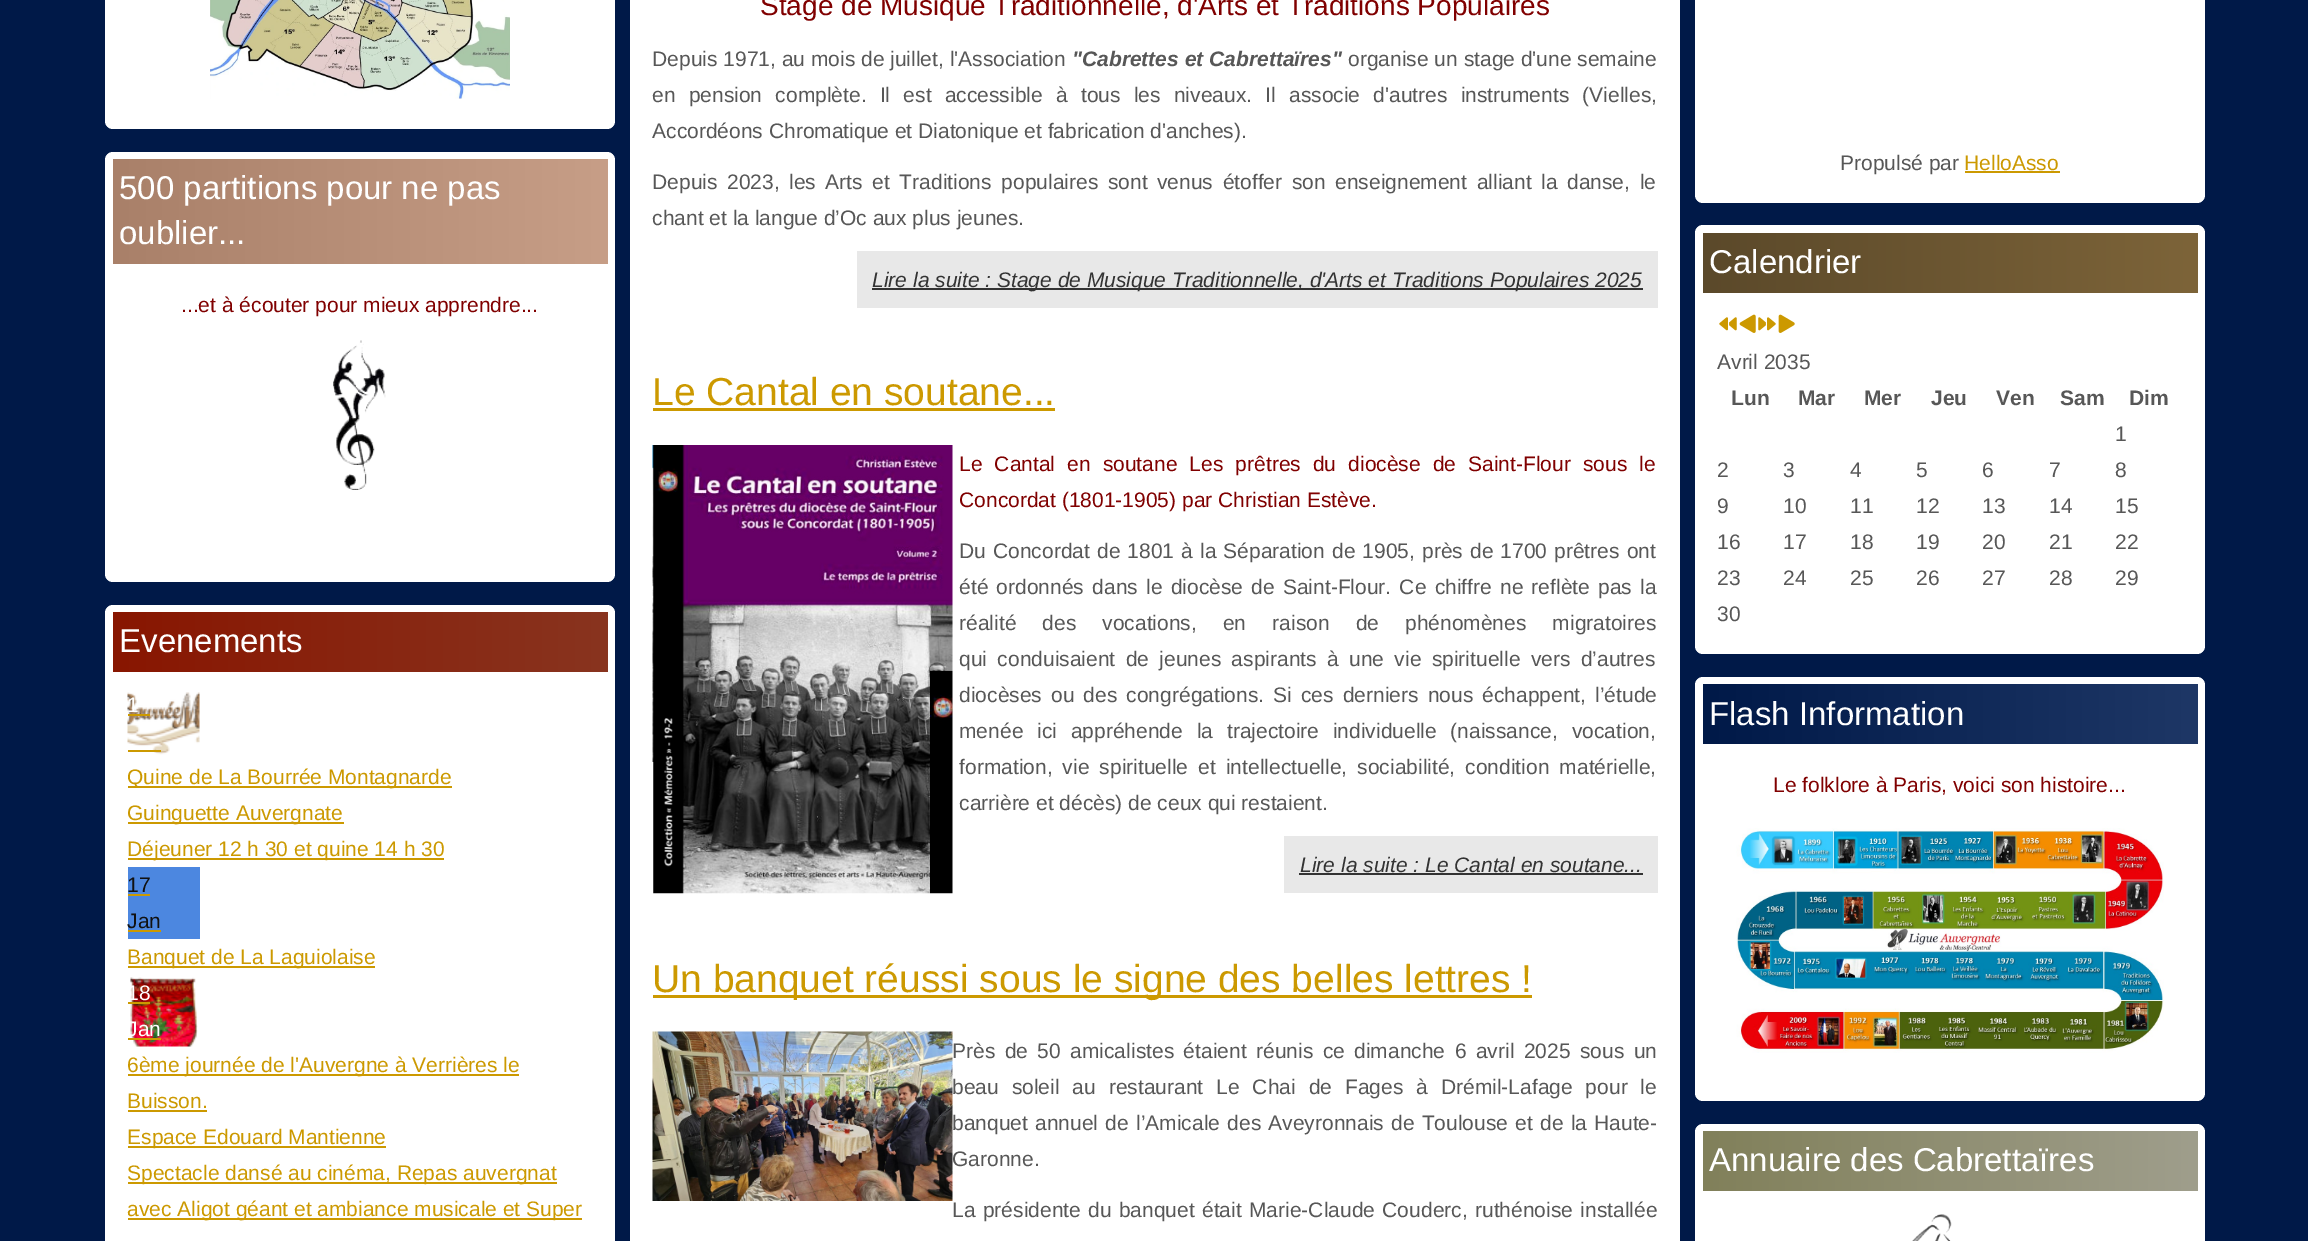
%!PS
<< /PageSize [2308 1241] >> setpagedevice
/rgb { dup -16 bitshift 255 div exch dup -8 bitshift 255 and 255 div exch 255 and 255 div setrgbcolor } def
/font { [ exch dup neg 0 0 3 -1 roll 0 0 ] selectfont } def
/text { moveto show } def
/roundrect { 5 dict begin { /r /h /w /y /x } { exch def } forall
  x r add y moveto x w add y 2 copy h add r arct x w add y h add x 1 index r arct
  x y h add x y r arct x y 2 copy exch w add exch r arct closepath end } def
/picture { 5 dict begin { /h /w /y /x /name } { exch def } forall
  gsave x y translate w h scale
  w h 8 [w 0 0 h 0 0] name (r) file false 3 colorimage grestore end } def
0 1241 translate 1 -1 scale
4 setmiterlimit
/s1 { /LiberationSans-Regular 33 font 16#FFFFFF rgb } def
/s2 { /LiberationSans-Regular 21 font 16#800000 rgb } def
/s3 { /LiberationSans-Regular 21 font 16#FFFFFF rgb } def
/s4 { /LiberationSans-Regular 21 font 16#CC9900 rgb } def
/s5 { /LiberationSans-Regular 21 font 16#111111 rgb } def
/s6 { /LiberationSans-Regular 28 font 16#800000 rgb } def
/s7 { /LiberationSans-Regular 21 font 16#575757 rgb } def
/s8 { /LiberationSans-BoldItalic 21 font 16#575757 rgb } def
/s9 { /LiberationSans-Italic 21 font 16#333333 rgb } def
/s10 { /LiberationSans-Regular 39 font 16#CC9900 rgb } def
/s11 { /LiberationSans-Bold 21 font 16#575757 rgb } def
16#001948 rgb
0 0 2308 1241 rectfill
16#FFFFFF rgb
105 -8 510 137 8 roundrect fill
(pic1.raw) 210 0 300 99 picture
105 152 510 430 8 roundrect fill
gsave 113 159 moveto 608 159 lineto 608 264 lineto 113 264 lineto closepath clip newpath
<< /ShadingType 2 /ColorSpace /DeviceRGB /Coords [113 212 608 212] /Extend [true true] /Function << /FunctionType 2 /Domain [0 1] /C0 [0.663 0.502 0.412] /C1 [0.78 0.62 0.529] /N 1 >> >> shfill grestore
s1
(500 partitions pour ne pas) 119 199 text
(oublier...) 119 244 text
s2
(...et à écouter pour mieux apprendre...) 181 312 text
(pic2.raw) 333 340 53 150 picture
16#FFFFFF rgb
105 605 510 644 8 roundrect fill
gsave 113 612 moveto 608 612 lineto 608 672 lineto 113 672 lineto closepath clip newpath
<< /ShadingType 2 /ColorSpace /DeviceRGB /Coords [113 642 608 642] /Extend [true true] /Function << /FunctionType 2 /Domain [0 1] /C0 [0.533 0.086 0.004] /C1 [0.533 0.204 0.122] /N 1 >> >> shfill grestore
s1
(Evenements) 119 652 text
(pic3.raw) 127 692 73 63 picture
s3
(1) 127 712 text
16#CC9900 rgb
128 714 22 2 rectfill
128 750 33 2 rectfill
128 786 324 2 rectfill
(Quine de La Bourrée Montagnarde) 127 784 text
128 822 216 2 rectfill
(Guinguette Auvergnate) 127 820 text
128 858 316 2 rectfill
(Déjeuner 12 h 30 et quine 14 h 30) 127 856 text
16#4C87E0 rgb
128 867 72 72 rectfill
s5
(17) 127 892 text
16#CC9900 rgb
128 894 22 2 rectfill
s5
(Jan) 127 928 text
16#CC9900 rgb
128 930 33 2 rectfill
128 966 247 2 rectfill
(Banquet de La Laguiolaise) 127 964 text
(pic4.raw) 130 977 68 70 picture
s3
(18) 127 1000 text
16#CC9900 rgb
128 1002 22 2 rectfill
s3
(Jan) 127 1036 text
16#CC9900 rgb
128 1038 33 2 rectfill
128 1074 391 2 rectfill
(6ème journée de l'Auvergne à Verrières le) 127 1072 text
(Buisson.) 127 1108 text
128 1110 79 2 rectfill
128 1146 258 2 rectfill
(Espace Edouard Mantienne) 127 1144 text
128 1182 429 2 rectfill
(Spectacle dansé au cinéma, Repas auvergnat) 127 1180 text
128 1218 454 2 rectfill
(avec Aligot géant et ambiance musicale et Super) 127 1216 text
16#FFFFFF rgb
630 0 1050 1241 rectfill
s6
(Stage de Musique Traditionnelle, d'Arts et Traditions Populaires) 760 15 text
s7
(Depuis 1971, au mois de juillet, l'Association) 652 66 text
s8
("Cabrettes et Cabrettaïres") 1072 66 text
s7
(organise un stage d'une semaine) 1348 66 text
652 102 moveto 7.4 0 32 (en pension complète. Il est accessible à tous les niveaux. Il associe d'autres instruments \(Vielles,) widthshow
(Accordéons Chromatique et Diatonique et fabrication d'anches\).) 652 138 text
652 189 moveto 3.75 0 32 (Depuis 2023, les Arts et Traditions populaires sont venus étoffer son enseignement alliant la danse, le) widthshow
(chant et la langue d’Oc aux plus jeunes.) 652 225 text
16#E8E8E8 rgb
857 251 801 57 rectfill
16#333333 rgb
872 288 771 2 rectfill
s9
(Lire la suite : Stage de Musique Traditionnelle, d'Arts et Traditions Populaires 2025) 872 287 text
s10
(Le Cantal en soutane...) 652 405 text
653 408 402 3 rectfill
(pic5.raw) 652 445 301 449 picture
/LiberationSans-Regular 21 font
16#800000 rgb
959 471 moveto 6.25 0 32 (Le Cantal en soutane Les prêtres du diocèse de Saint-Flour sous le) widthshow
(Concordat \(1801-1905\) par Christian Estève.) 959 507 text
16#575757 rgb
959 558 moveto 1.25 0 32 (Du Concordat de 1801 à la Séparation de 1905, près de 1700 prêtres ont) widthshow
959 594 moveto 2.4 0 32 (été ordonnés dans le diocèse de Saint-Flour. Ce chiffre ne reflète pas la) widthshow
959 630 moveto 20.25 0 32 (réalité des vocations, en raison de phénomènes migratoires) widthshow
959 666 moveto 4.5 0 32 (qui conduisaient de jeunes aspirants à une vie spirituelle vers d’autres) widthshow
959 702 moveto 3.25 0 32 (diocèses ou des congrégations. Si ces derniers nous échappent, l’étude) widthshow
959 738 moveto 8 0 32 (menée ici appréhende la trajectoire individuelle \(naissance, vocation,) widthshow
959 774 moveto 4.25 0 32 (formation, vie spirituelle et intellectuelle, sociabilité, condition matérielle,) widthshow
(carrière et décès\) de ceux qui restaient.) 959 810 text
16#E8E8E8 rgb
1284 836 374 57 rectfill
s9
(Lire la suite : Le Cantal en soutane...) 1300 872 text
1299 873 344 2 rectfill
16#CC9900 rgb
653 995 879 3 rectfill
s10
(Un banquet réussi sous le signe des belles lettres !) 652 992 text
(pic6.raw) 652 1031 301 170 picture
/LiberationSans-Regular 21 font
16#575757 rgb
952 1058 moveto 3.6 0 32 (Près de 50 amicalistes étaient réunis ce dimanche 6 avril 2025 sous un) widthshow
952 1094 moveto 7.1 0 32 (beau soleil au restaurant Le Chai de Fages à Drémil-Lafage pour le) widthshow
952 1130 moveto 1.4 0 32 (banquet annuel de l’Amicale des Aveyronnais de Toulouse et de la Haute-) widthshow
(Garonne.) 952 1166 text
952 1217 moveto 1.5 0 32 (La présidente du banquet était Marie-Claude Couderc, ruthénoise installée) widthshow
16#FFFFFF rgb
1695 -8 510 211 8 roundrect fill
s7
(Propulsé par) 1840 170 text
s4
(HelloAsso) 1964 170 text
1965 171 95 2 rectfill
16#FFFFFF rgb
1695 225 510 429 8 roundrect fill
gsave 1703 233 moveto 2198 233 lineto 2198 293 lineto 1703 293 lineto closepath clip newpath
<< /ShadingType 2 /ColorSpace /DeviceRGB /Coords [1703 263 2198 263] /Extend [true true] /Function << /FunctionType 2 /Domain [0 1] /C0 [0.357 0.286 0.165] /C1 [0.49 0.392 0.224] /N 1 >> >> shfill grestore
s1
(Calendrier) 1709 273 text
(pic7.raw) 1719 317 18 14 picture
(pic8.raw) 1739 314 17 19 picture
(pic9.raw) 1758 317 18 14 picture
(pic10.raw) 1778 314 17 19 picture
s7
(Avril 2035) 1717 369 text
s11
(Lun) 1731 405 text
(Mar) 1798 405 text
(Mer) 1864 405 text
(Jeu) 1931 405 text
(Ven) 1996 405 text
(Sam) 2060 405 text
(Dim) 2129 405 text
s7
(1) 2115 441 text
(2) 1717 477 text
(3) 1783 477 text
(4) 1850 477 text
(5) 1916 477 text
(6) 1982 477 text
(7) 2049 477 text
(8) 2115 477 text
(9) 1717 513 text
(10) 1783 513 text
(11) 1850 513 text
(12) 1916 513 text
(13) 1982 513 text
(14) 2049 513 text
(15) 2115 513 text
(16) 1717 549 text
(17) 1783 549 text
(18) 1850 549 text
(19) 1916 549 text
(20) 1982 549 text
(21) 2049 549 text
(22) 2115 549 text
(23) 1717 585 text
(24) 1783 585 text
(25) 1850 585 text
(26) 1916 585 text
(27) 1982 585 text
(28) 2049 585 text
(29) 2115 585 text
(30) 1717 621 text
16#FFFFFF rgb
1695 677 510 424 8 roundrect fill
gsave 1703 684 moveto 2198 684 lineto 2198 744 lineto 1703 744 lineto closepath clip newpath
<< /ShadingType 2 /ColorSpace /DeviceRGB /Coords [1703 714 2198 714] /Extend [true true] /Function << /FunctionType 2 /Domain [0 1] /C0 [0 0.098 0.282] /C1 [0.118 0.216 0.4] /N 1 >> >> shfill grestore
s1
(Flash Information) 1709 725 text
s2
(Le folklore à Paris, voici son histoire...) 1773 792 text
(pic11.raw) 1736 828 428 225 picture
16#FFFFFF rgb
1695 1124 510 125 8 roundrect fill
gsave 1703 1131 moveto 2198 1131 lineto 2198 1191 lineto 1703 1191 lineto closepath clip newpath
<< /ShadingType 2 /ColorSpace /DeviceRGB /Coords [1703 1161 2198 1161] /Extend [true true] /Function << /FunctionType 2 /Domain [0 1] /C0 [0.506 0.502 0.353] /C1 [0.624 0.62 0.549] /N 1 >> >> shfill grestore
s1
(Annuaire des Cabrettaïres) 1709 1171 text
(pic12.raw) 1912 1214 40 27 picture
showpage
